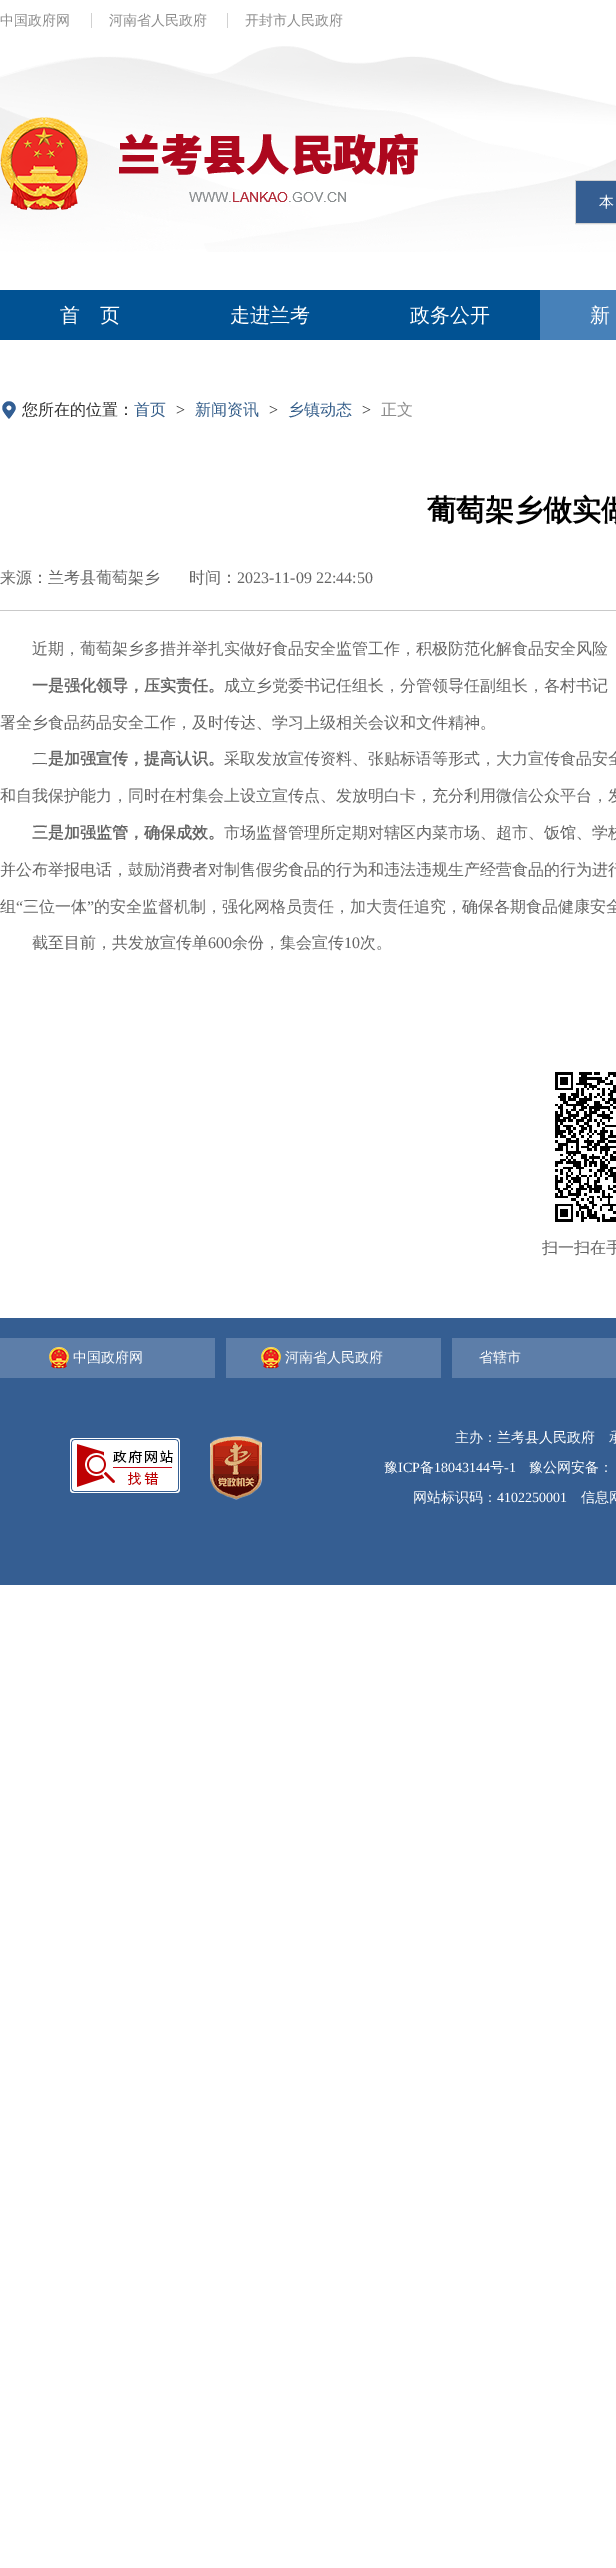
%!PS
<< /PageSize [616 2568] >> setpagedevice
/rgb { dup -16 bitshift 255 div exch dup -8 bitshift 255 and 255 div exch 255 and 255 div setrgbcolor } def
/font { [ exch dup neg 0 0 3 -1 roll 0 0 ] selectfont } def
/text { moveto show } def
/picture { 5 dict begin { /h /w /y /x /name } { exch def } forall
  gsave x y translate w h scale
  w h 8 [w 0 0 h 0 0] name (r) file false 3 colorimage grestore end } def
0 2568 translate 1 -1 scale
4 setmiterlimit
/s1 { /WenQuanYiZenHei-Medium 14 font 16#8D8D8D rgb } def
/s2 { /WenQuanYiZenHei-Medium 15 font 16#FFFFFF rgb } def
/s3 { /WenQuanYiZenHei-Medium 20 font 16#FFFFFF rgb } def
/s4 { /WenQuanYiZenHei-Medium 16 font 16#333333 rgb } def
/s5 { /WenQuanYiZenHei-Medium 16 font 16#355E8A rgb } def
/s6 { /LiberationSerif-Regular 16 font 16#333333 rgb } def
/s7 { /WenQuanYiZenHei-Medium 16 font 16#8D8D8D rgb } def
/s8 { /WenQuanYiZenHei-Bold 29 font 16#000000 rgb } def
/s9 { /WenQuanYiZenHei-Medium 16 font 16#656565 rgb } def
/s10 { /LiberationSerif-Regular 16 font 16#656565 rgb } def
/s11 { /WenQuanYiZenHei-Bold 16 font 16#656565 rgb } def
/s12 { /WenQuanYiZenHei-Medium 14 font 16#FFFFFF rgb } def
/s13 { /LiberationSerif-Regular 14 font 16#FFFFFF rgb } def
16#FFFFFF rgb
0 0 616 2568 rectfill
(pic1.raw) 0 46 616 206 picture
s1
(中国政府网) 0 25 text
16#D1D1D1 rgb
91 13 1 15 rectfill
s1
(河南省人民政府) 109 25 text
16#D1D1D1 rgb
227 13 1 15 rectfill
s1
(开封市人民政府) 245 25 text
(pic2.raw) 0 117 418 93 picture
16#D1D1D1 rgb
575.5 180.5 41 43 rectstroke
16#355E92 rgb
576 181 40 42 rectfill
s2
(本) 599 207 text
16#015293 rgb
0 290 540 50 rectfill
s3
(首　页) 60 322 text
(走进兰考) 230 322 text
(政务公开) 410 322 text
16#4781B9 rgb
540 290 76 50 rectfill
s3
(新) 590 322 text
(pic3.raw) 2 401 14 18 picture
s4
(您所在的位置：) 22 415 text
s5
(首页) 134 415 text
s6
(>) 176 415 text
s5
(新闻资讯) 195 415 text
s6
(>) 269 415 text
s5
(乡镇动态) 288 415 text
s6
(>) 362 415 text
s7
(正文) 381 415 text
s8
(葡萄架乡做实做) 427 520 text
16#C9C9C9 rgb
0 610 616 1 rectfill
s9
(来源：兰考县葡萄架乡) 0 583 text
(时间：) 189 583 text
s10
(2023-11-09 22:44:50) 237 583 text
s9
(近期，葡萄架乡多措并举扎实做好食品安全监管工作，积极防范化解食品安全风险) 32 654 text
s11
(一是强化领导，压实责任。) 32 691 text
s9
(成立乡党委书记任组长，分管领导任副组长，各村书记) 224 691 text
(署全乡食品药品安全工作，及时传达、学习上级相关会议和文件精神。) 0 728 text
(二) 32 764 text
s11
(是加强宣传，提高认识。) 48 764 text
s9
(采取发放宣传资料、张贴标语等形式，大力宣传食品安全) 224 764 text
(和自我保护能力，同时在村集会上设立宣传点、发放明白卡，充分利用微信公众平台，发) 0 801 text
s11
(三是加强监管，确保成效。) 32 838 text
s9
(市场监督管理所定期对辖区内菜市场、超市、饭馆、学校) 224 838 text
(并公布举报电话，鼓励消费者对制售假劣食品的行为和违法违规生产经营食品的行为进行) 0 875 text
(组) 0 912 text
s10
(“) 16 912 text
s9
(三位一体) 23 912 text
s10
(”) 87 912 text
s9
(的安全监督机制，强化网格员责任，加大责任追究，确保各期食品健康安全) 94 912 text
(截至目前，共发放宣传单) 32 948 text
s10
(600) 208 948 text
s9
(余份，集会宣传) 232 948 text
s10
(10) 344 948 text
s9
(次。) 360 948 text
(pic4.raw) 555 1072 61 150 picture
(扫一扫在手) 542 1253 text
16#355E92 rgb
0 1318 616 267 rectfill
16#5D7EA9 rgb
0 1338 215 40 rectfill
(pic5.raw) 49 1347 20 22 picture
s12
(中国政府网) 73 1362 text
16#5D7EA9 rgb
226 1338 215 40 rectfill
(pic5.raw) 261 1347 20 22 picture
s12
(河南省人民政府) 285 1362 text
16#5D7EA9 rgb
452 1338 164 40 rectfill
s12
(省辖市) 479 1362 text
(pic6.raw) 70 1438 110 55 picture
(pic7.raw) 210 1436 52 64 picture
(主办：兰考县人民政府　承) 455 1442 text
(豫) 384 1472 text
s13
(ICP) 398 1472 text
s12
(备) 420 1472 text
s13
(18043144) 434 1472 text
s12
(号) 490 1472 text
s13
(-1) 504 1472 text
s12
(豫公网安备：) 529 1472 text
(网站标识码：) 413 1502 text
s13
(4102250001) 497 1502 text
s12
(信息网) 581 1502 text
showpage
